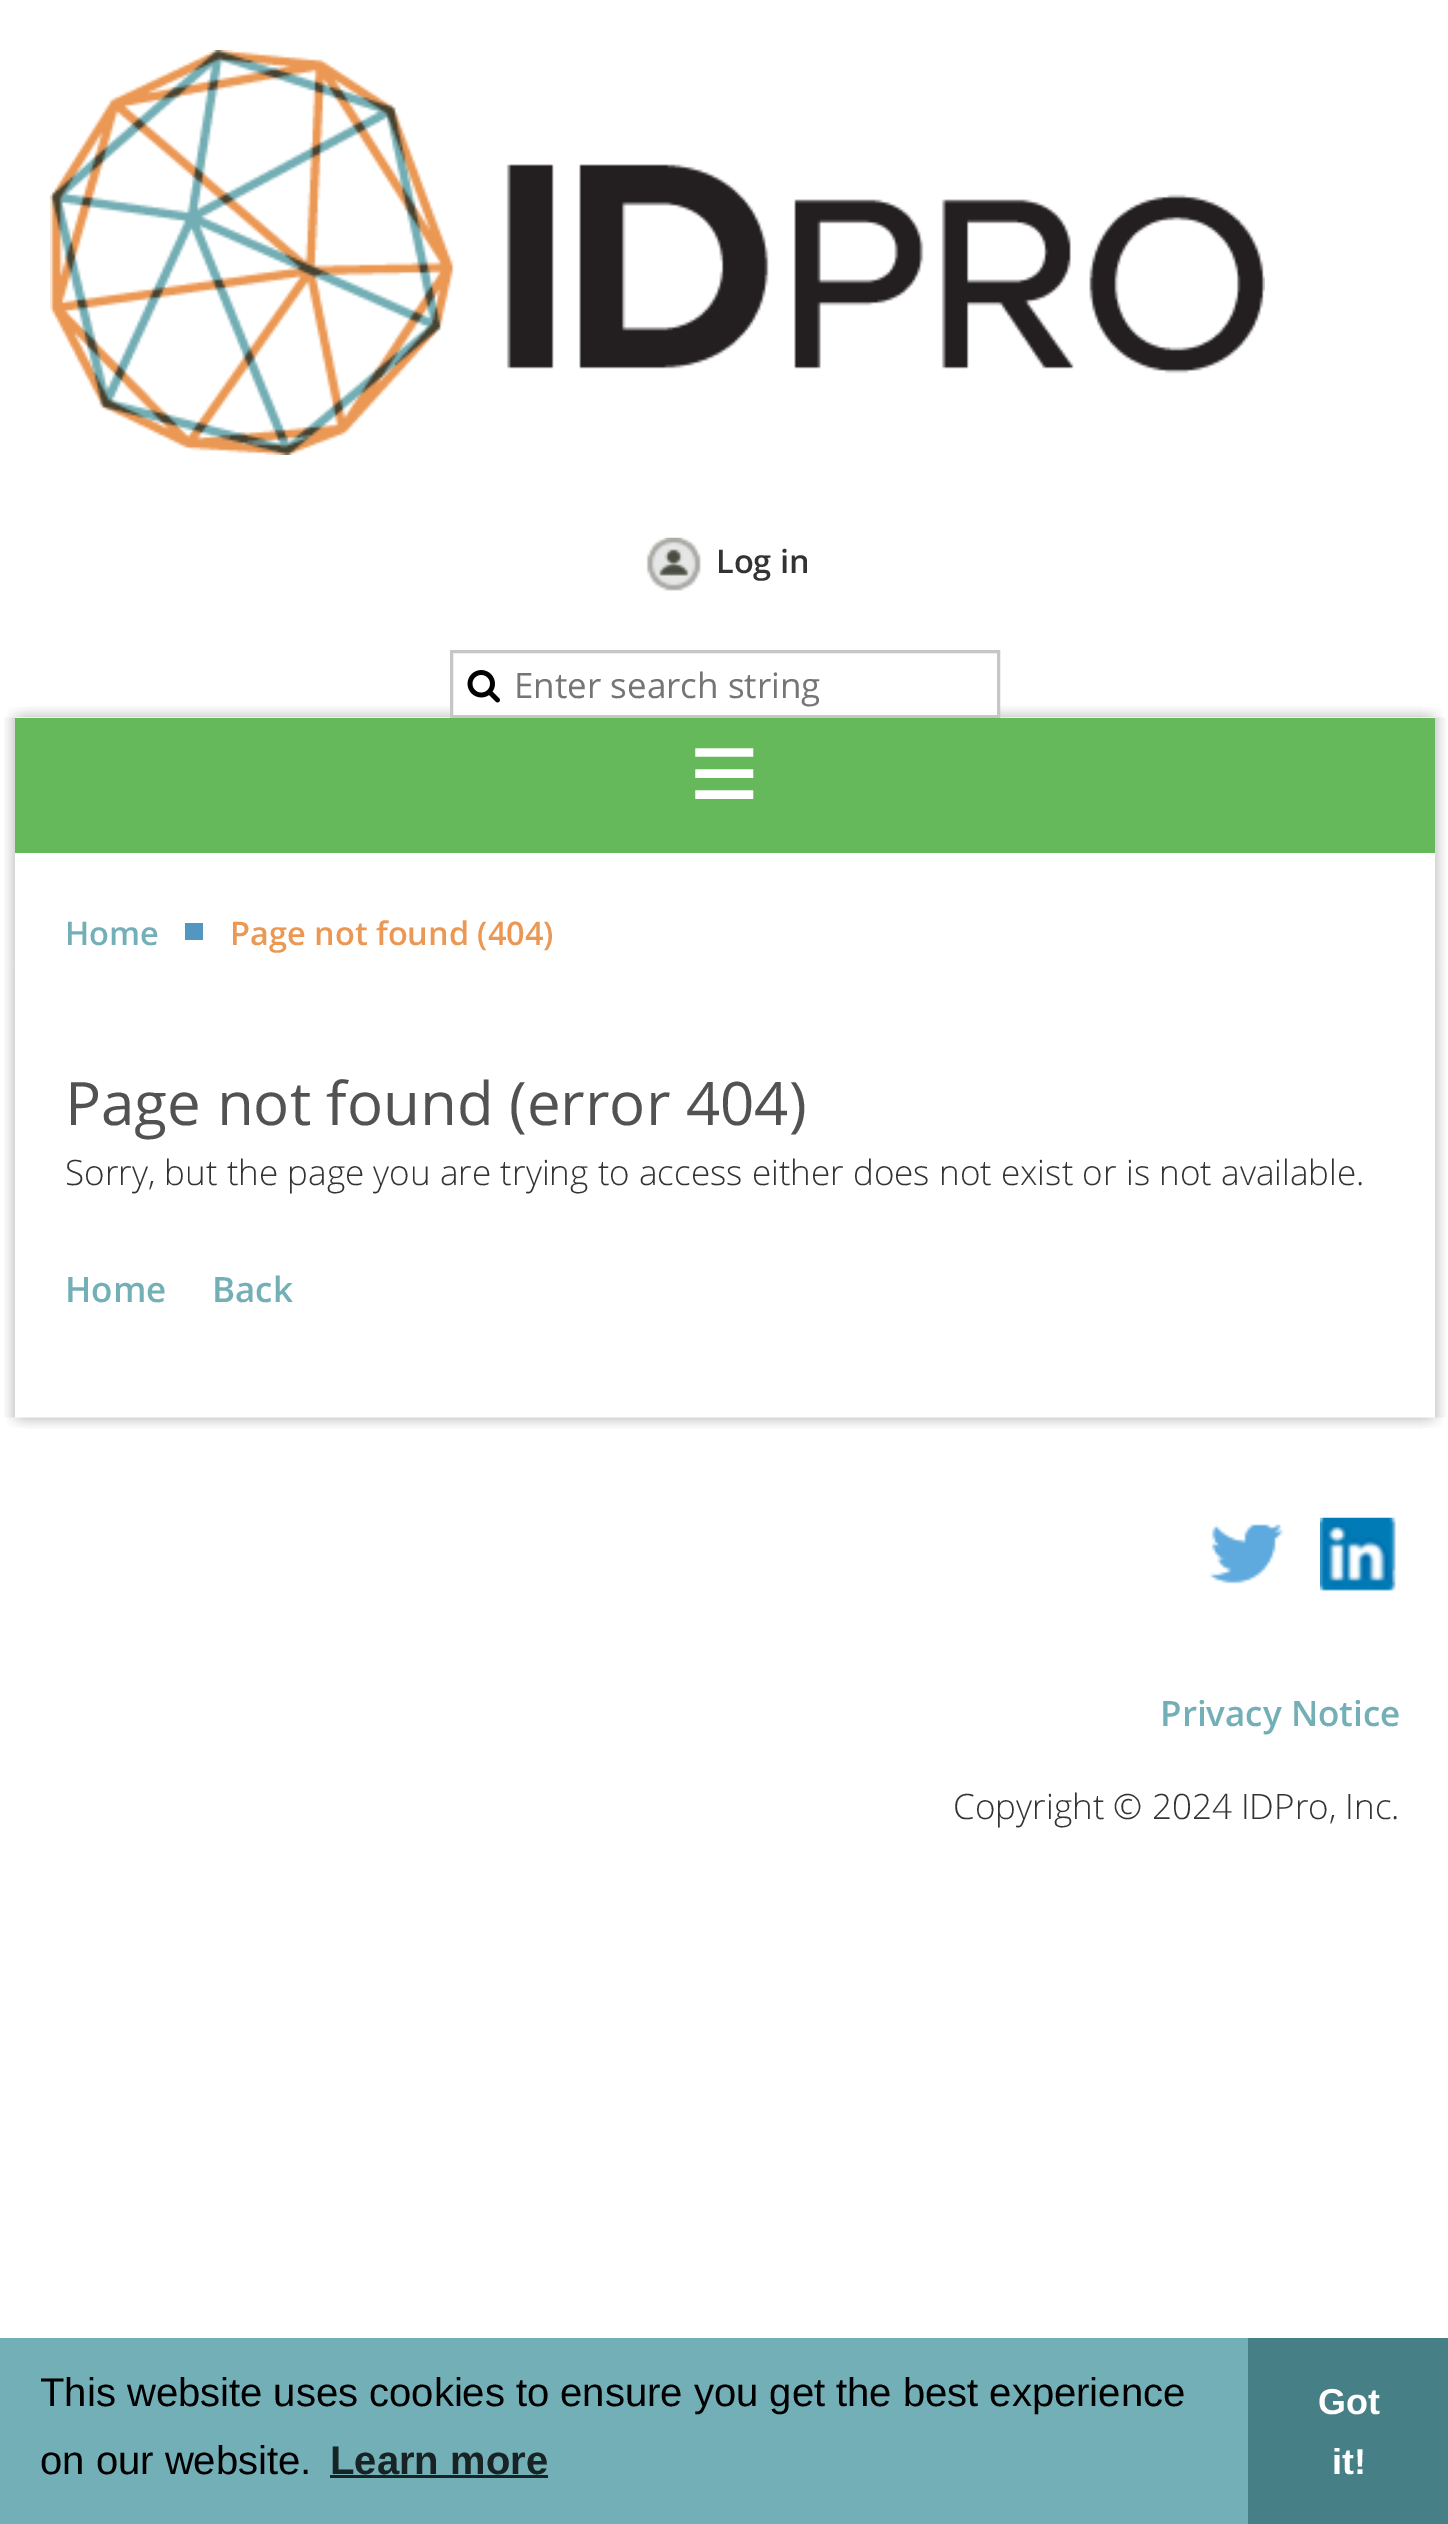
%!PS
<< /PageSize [1448 2524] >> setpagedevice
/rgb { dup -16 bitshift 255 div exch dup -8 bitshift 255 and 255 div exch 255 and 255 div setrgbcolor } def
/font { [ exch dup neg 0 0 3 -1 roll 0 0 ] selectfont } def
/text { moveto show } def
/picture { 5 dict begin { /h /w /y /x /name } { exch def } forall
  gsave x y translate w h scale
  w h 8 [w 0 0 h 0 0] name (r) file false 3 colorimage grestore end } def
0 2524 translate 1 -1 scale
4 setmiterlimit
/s1 { /OpenSans-SemiBold 32.5 font 16#333333 rgb } def
/s2 { /OpenSans-Regular 35 font 16#757575 rgb } def
/s3 { /LiberationSerif-Bold 125 font 16#FFFFFF rgb } def
/s4 { /OpenSans-SemiBold 32.5 font 16#73AFB6 rgb } def
/s5 { /OpenSans-SemiBold 32.5 font 16#EB9854 rgb } def
/s6 { /OpenSans-Regular 60 font 16#525252 rgb } def
/s7 { /OpenSans-Light 35 font 16#333333 rgb } def
/s8 { /OpenSans-SemiBold 35 font 16#73AFB6 rgb } def
/s9 { /LiberationSans-Regular 40 font 16#000000 rgb } def
/s10 { /LiberationSans-Bold 40 font 16#172324 rgb } def
/s11 { /LiberationSans-Bold 36 font 16#FFFFFF rgb } def
16#FFFFFF rgb
0 0 1448 2524 rectfill
(pic1.raw) 50 50 1215 405 picture
(pic2.raw) 646 537 55 54 picture
s1
(Log in) 716 573 text
(pic4.raw) 7 707 1436 11 picture
(pic5.raw) 27 706 1396 12 picture
16#FFFFFF rgb
453 706 544 9 rectfill
(pic6.raw) 4 717 1442 136 picture
16#C6C6C6 rgb
3 setlinewidth
451.5 651.5 547 65 rectstroke
(pic3.raw) 467 670 33 33 picture
s2
(Enter search string) 514 698 text
(pic7.raw) 4 852 1442 111 picture
16#66B95B rgb
15 718 1420 135 rectfill
s3
(≡) 689 815 text
s4
(Home) 65 945 text
16#5297BF rgb
185 923 18 17 rectfill
s5
(Page not found \(404\)) 230 945 text
(pic8.raw) 4 962 1442 456 picture
s6
(Page not found \(error 404\)) 65 1125 text
s7
(Sorry, but the page you are trying to access either does not exist or is not available.) 65 1185 text
s8
(Home) 65 1302 text
(Back) 212 1302 text
(pic9.raw) 7 1417 1436 11 picture
(pic10.raw) 27 1417 1396 12 picture
(pic11.raw) 1209 1524 75 60 picture
(pic12.raw) 1320 1517 78 74 picture
(Privacy Notice) 1160 1726 text
s7
(Copyright © 2024 IDPro, Inc.) 953 1819 text
16#73AFB6 rgb
0 2338 1248 186 rectfill
s9
(This website uses cookies to ensure you get the best experience) 40 2406 text
(on our website.) 40 2474 text
s10
(Learn more) 330 2474 text
330 2475 218 3 rectfill
16#467F86 rgb
1248 2338 200 186 rectfill
s11
(Got) 1318 2414 text
(it!) 1332 2474 text
showpage
